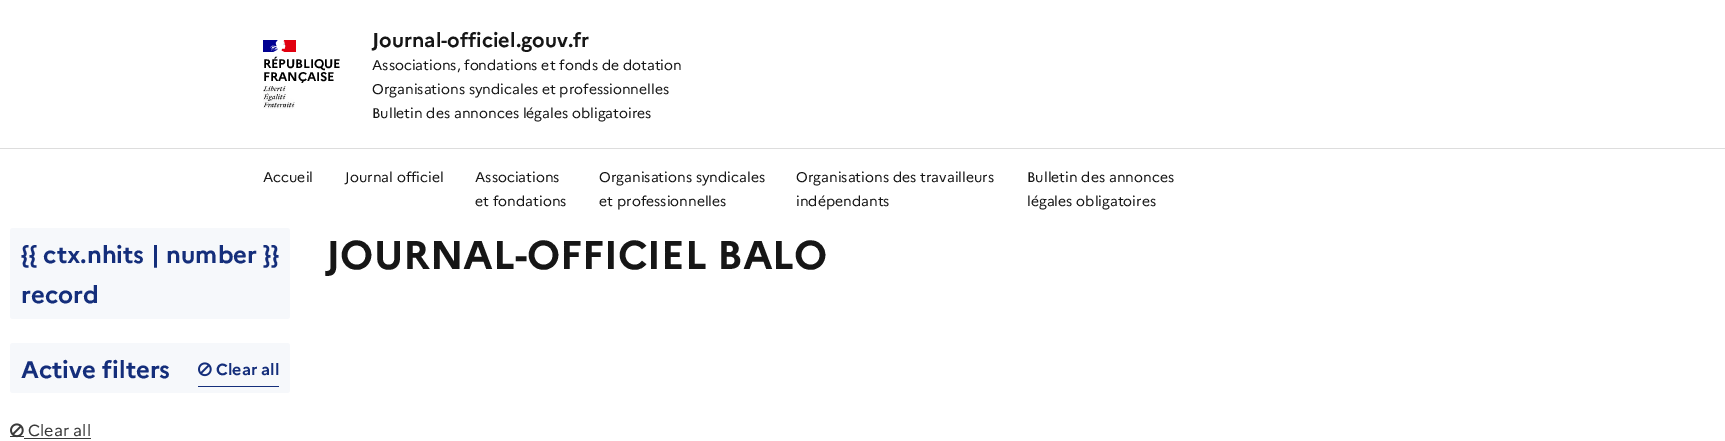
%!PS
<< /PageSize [1725 441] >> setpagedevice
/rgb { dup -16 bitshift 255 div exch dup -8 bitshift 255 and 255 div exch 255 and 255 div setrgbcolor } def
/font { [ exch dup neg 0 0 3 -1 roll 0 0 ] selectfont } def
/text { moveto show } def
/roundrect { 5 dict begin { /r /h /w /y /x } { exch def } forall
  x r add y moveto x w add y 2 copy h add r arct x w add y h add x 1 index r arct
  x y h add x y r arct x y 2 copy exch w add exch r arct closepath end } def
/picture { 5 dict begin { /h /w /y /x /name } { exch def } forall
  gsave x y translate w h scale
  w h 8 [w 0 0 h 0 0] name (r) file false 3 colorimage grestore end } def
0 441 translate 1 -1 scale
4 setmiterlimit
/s1 { /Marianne-Bold 20 font 16#161616 rgb } def
/s2 { /Marianne-Regular 14 font 16#161616 rgb } def
/s3 { /Marianne-Bold 24 font 16#142E7B rgb } def
/s4 { /Marianne-Bold 16 font 16#142E7B rgb } def
/s5 { /Marianne-Regular 16 font 16#3A3A3A rgb } def
/s6 { /Marianne-Bold 40 font 16#161616 rgb } def
16#FFFFFF rgb
0 0 1725 441 rectfill
16#000091 rgb
263 40 16 12 rectfill
16#E1000F rgb
281 40 15 12 rectfill
(pic1.raw) 270 40 16 12 picture
/Marianne-Bold 12.5 font
16#000000 rgb
263 68 moveto -0.1 0 (RÉPUBLIQUE) ashow
263 81 moveto -0.1 0 (FRANÇAISE) ashow
(pic2.raw) 263 86 32 23 picture
s1
(Journal-officiel.gouv.fr) 372 47 text
s2
(Associations, fondations et fonds de dotation) 372 70 text
(Organisations syndicales et professionnelles) 372 94 text
(Bulletin des annonces légales obligatoires) 372 118 text
16#DDDDDD rgb
0 148 1725 1 rectfill
s2
(Accueil) 263 182 text
(Journal officiel) 345 182 text
(Associations) 475 182 text
(et fondations) 475 206 text
(Organisations syndicales) 599 182 text
(et professionnelles) 599 206 text
(Organisations des travailleurs) 796 182 text
(indépendants) 796 206 text
(Bulletin des annonces) 1027 182 text
(légales obligatoires) 1027 206 text
16#F6F8FB rgb
10 228 280 91 3 roundrect fill
s3
({{ ctx.nhits | number }}) 21 263 text
(record) 21 303 text
16#F6F8FB rgb
10 343 280 50 3 roundrect fill
s3
(Active filters) 21 378 text
198 386 81 1 rectfill
(pic3.raw) 198 362 14 15 picture
s4
(Clear all) 216 375 text
16#3A3A3A rgb
10 436 14 1 rectfill
24 438 67 1 rectfill
(pic4.raw) 10 423 14 15 picture
s5
(Clear all) 28 436 text
s6
(JOURNAL-OFFICIEL BALO) 326 269 text
showpage
